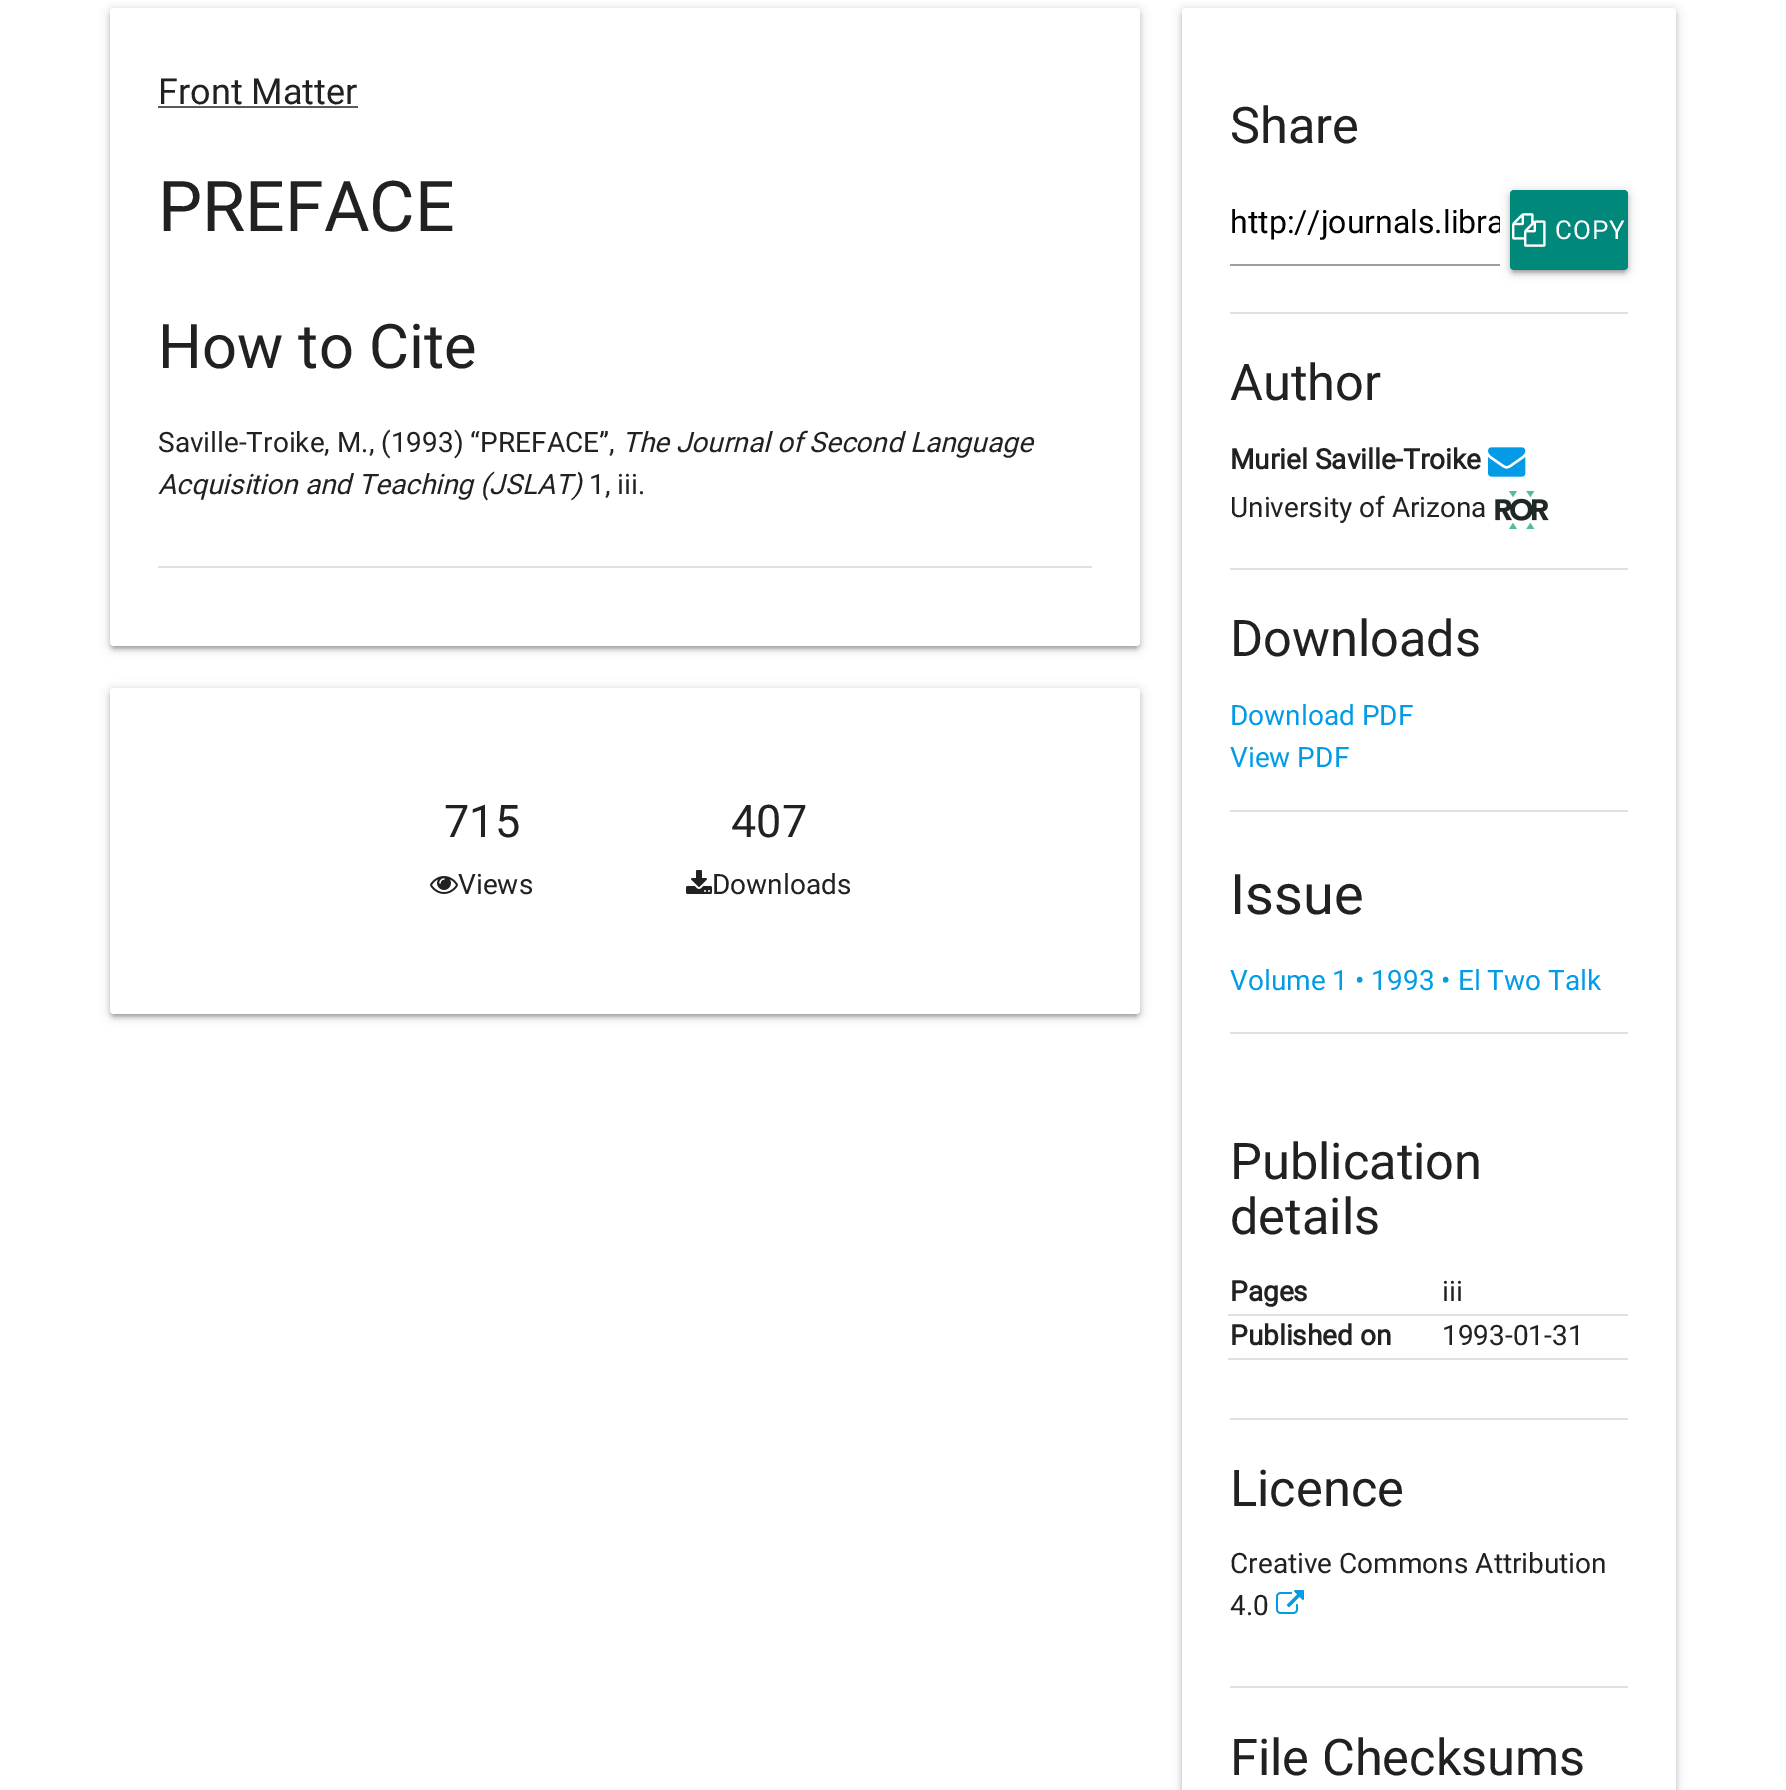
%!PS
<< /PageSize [1786 1790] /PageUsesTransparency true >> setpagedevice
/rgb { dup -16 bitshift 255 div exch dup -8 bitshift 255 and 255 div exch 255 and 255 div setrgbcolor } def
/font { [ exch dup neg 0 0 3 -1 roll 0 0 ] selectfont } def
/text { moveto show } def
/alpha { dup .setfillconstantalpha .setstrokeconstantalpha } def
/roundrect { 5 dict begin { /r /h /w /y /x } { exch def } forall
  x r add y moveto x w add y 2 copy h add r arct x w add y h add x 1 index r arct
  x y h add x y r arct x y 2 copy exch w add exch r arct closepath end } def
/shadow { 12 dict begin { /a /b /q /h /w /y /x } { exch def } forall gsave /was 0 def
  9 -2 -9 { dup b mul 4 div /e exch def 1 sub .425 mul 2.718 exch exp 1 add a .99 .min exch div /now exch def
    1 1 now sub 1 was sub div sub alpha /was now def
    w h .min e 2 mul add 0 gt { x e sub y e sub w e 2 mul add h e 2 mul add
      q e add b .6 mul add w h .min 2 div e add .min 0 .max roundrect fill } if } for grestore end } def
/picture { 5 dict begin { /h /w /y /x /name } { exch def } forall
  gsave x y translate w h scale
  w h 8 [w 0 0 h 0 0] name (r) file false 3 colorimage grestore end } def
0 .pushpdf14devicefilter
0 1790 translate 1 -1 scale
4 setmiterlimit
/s1 { /Roboto-Regular 36 font 16#212121 rgb } def
/s2 { /Roboto-Regular 70 font 16#212121 rgb } def
/s3 { /Roboto-Regular 61.5 font 16#212121 rgb } def
/s4 { /Roboto-Regular 28 font 16#212121 rgb } def
/s5 { /Roboto-Italic 28 font 16#212121 rgb } def
/s6 { /Roboto-Regular 45 font 16#212121 rgb } def
/s7 { /Roboto-Regular 50.5 font 16#212121 rgb } def
/s8 { /Roboto-Regular 32 font 16#000000 rgb } def
/s9 { /Roboto-Bold 28 font 16#212121 rgb } def
/s10 { /Roboto-Regular 28 font 16#039BE5 rgb } def
/s11 { /Roboto-Regular 56 font 16#212121 rgb } def
16#FFFFFF rgb
0 0 1786 1790 rectfill
16#000000 rgb
110 10 1030 638 4 5 0.2 shadow
114 18 1022 630 0 1 0.12 shadow
110 12 1030 638 4 2 0.14 shadow
16#FFFFFF rgb
110 8 1030 638 4 roundrect fill
s1
(Front Matter) 158 104 text
16#5A5A5A rgb
158 106 200 2 rectfill
s2
(PREFACE) 158 231 text
s3
(How to Cite) 158 368 text
s4
(Saville-Troike, M., \(1993\) “PREFACE”,) 158 452 text
s5
(The Journal of Second Language) 622 452 text
(Acquisition and Teaching \(JSLAT\)) 158 494 text
s4
(1, iii.) 589 494 text
16#E0E0E0 rgb
158 566 934 2 rectfill
16#000000 rgb
110 690 1030 326 4 5 0.2 shadow
114 698 1022 318 0 1 0.12 shadow
110 692 1030 326 4 2 0.14 shadow
16#FFFFFF rgb
110 688 1030 326 4 roundrect fill
s6
(715) 444 837 text
(pic1.raw) 430 876 28 18 picture
s4
(Views) 458 894 text
s6
(407) 731 837 text
(pic2.raw) 686 870 26 24 picture
s4
(Downloads) 712 894 text
16#000000 rgb
1182 10 494 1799 4 5 0.2 shadow
1182 12 494 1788 4 2 0.14 shadow
16#FFFFFF rgb
1182 8 494 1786 4 roundrect fill
s7
(Share) 1230 143 text
16#9E9E9E rgb
1230 264 270 2 rectfill
gsave
1230 202 270 38 rectclip
s8
(http://journals.libra) 1230 233 text
grestore
16#000000 rgb
1510 192 118 80 4 5 0.2 shadow
1514 200 110 72 0 1 0.12 shadow
1510 194 118 80 4 2 0.14 shadow
16#00897B rgb
1510 190 118 80 4 roundrect fill
(pic3.raw) 1512 213 34 34 picture
/Roboto-Regular 26 font
16#FFFFFF rgb
1555 239 moveto 1 0 (COPY) ashow
16#E0E0E0 rgb
1230 312 398 2 rectfill
s7
(Author) 1230 400 text
s9
(Muriel Saville-Troike) 1230 469 text
(pic4.raw) 1488 447 38 30 picture
s4
(University of Arizona) 1230 517 text
(pic5.raw) 1495 491 54 38 picture
16#E0E0E0 rgb
1230 568 398 2 rectfill
s7
(Downloads) 1230 656 text
s10
(Download PDF) 1230 725 text
(View PDF) 1230 767 text
16#E0E0E0 rgb
1230 810 398 2 rectfill
s11
(Issue) 1230 914 text
s10
(Volume 1 • 1993 • El Two Talk) 1230 990 text
16#E0E0E0 rgb
1230 1032 398 2 rectfill
s7
(Publication) 1230 1179 text
(details) 1230 1234 text
16#E0E0E0 rgb
1228 1314 400 2 rectfill
s9
(Pages) 1230 1301 text
s4
(iii) 1442 1301 text
16#E0E0E0 rgb
1228 1358 400 2 rectfill
s9
(Published on) 1230 1345 text
s4
(1993-01-31) 1442 1345 text
16#E0E0E0 rgb
1230 1418 398 2 rectfill
s7
(Licence) 1230 1506 text
s4
(Creative Commons Attribution) 1230 1573 text
(4.0) 1230 1615 text
(pic6.raw) 1276 1590 28 24 picture
16#E0E0E0 rgb
1230 1686 398 2 rectfill
s7
(File Checksums) 1230 1775 text
.poppdf14devicefilter showpage
